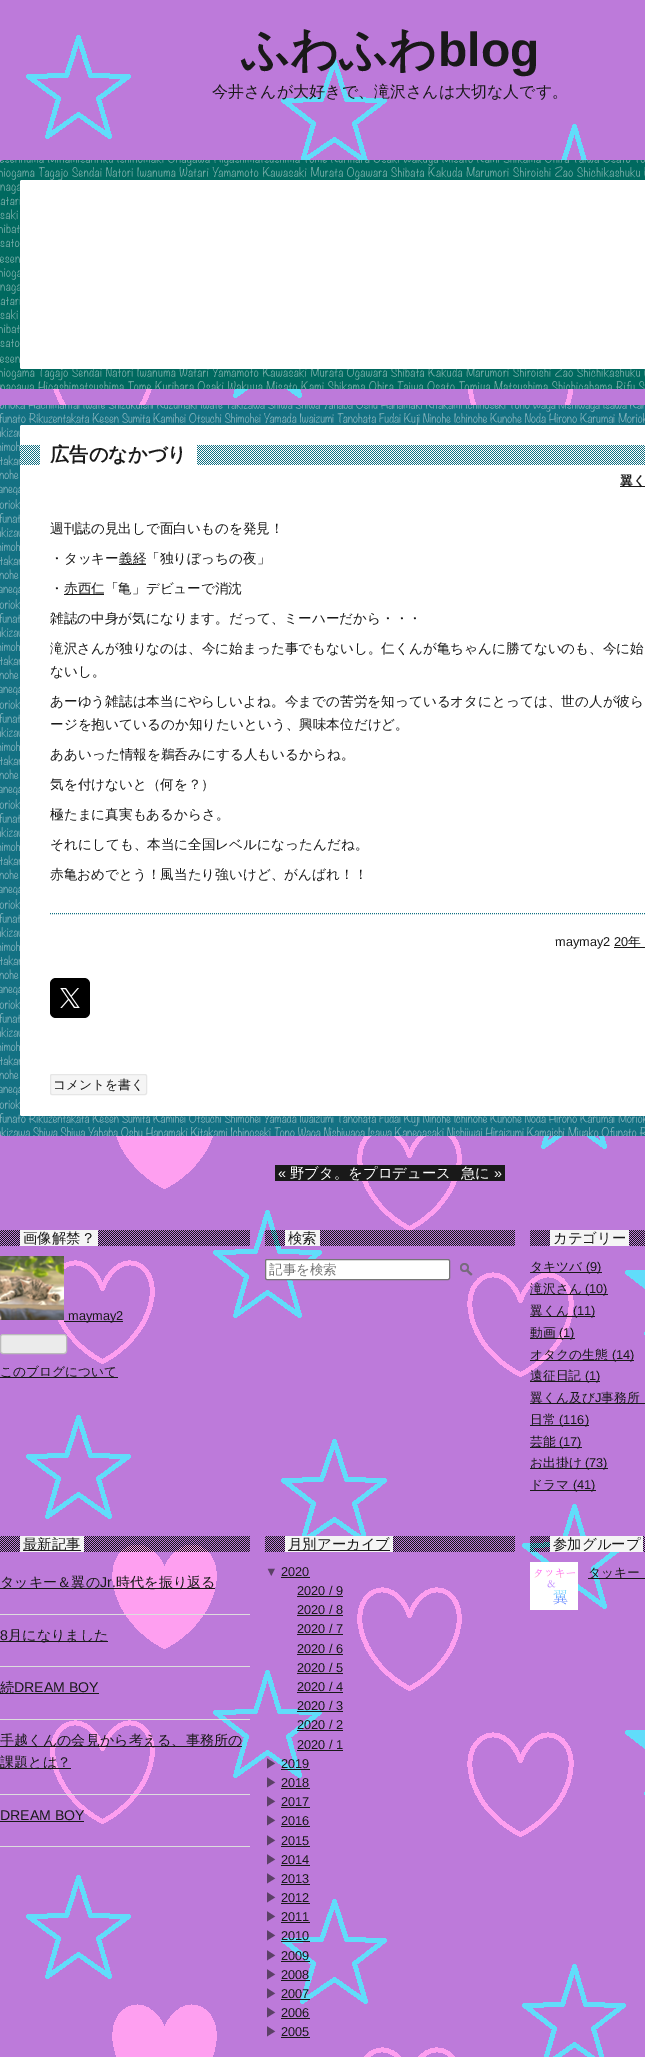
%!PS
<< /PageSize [645 2057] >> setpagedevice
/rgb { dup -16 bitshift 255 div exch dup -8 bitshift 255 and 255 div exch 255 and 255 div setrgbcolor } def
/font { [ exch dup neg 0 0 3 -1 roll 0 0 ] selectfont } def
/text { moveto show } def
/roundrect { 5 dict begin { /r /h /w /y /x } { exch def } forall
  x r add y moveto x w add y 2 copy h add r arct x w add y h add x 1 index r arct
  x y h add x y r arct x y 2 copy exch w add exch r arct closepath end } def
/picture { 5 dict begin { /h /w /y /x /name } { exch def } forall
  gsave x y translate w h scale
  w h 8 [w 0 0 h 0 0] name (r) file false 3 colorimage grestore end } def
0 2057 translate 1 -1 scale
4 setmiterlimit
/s1 { /WenQuanYiZenHei-Bold 48 font 16#191919 rgb } def
/s2 { /LiberationSans-Bold 48 font 16#191919 rgb } def
/s3 { /WenQuanYiZenHei-Medium 16 font 16#191919 rgb } def
/s4 { /WenQuanYiZenHei-Bold 19.25 font 16#191919 rgb } def
/s5 { /WenQuanYiZenHei-Bold 12.75 font 16#191919 rgb } def
/s6 { /WenQuanYiZenHei-Medium 13.6 font 16#191919 rgb } def
/s7 { /LiberationSans-Regular 12.75 font 16#191919 rgb } def
/s8 { /WenQuanYiZenHei-Medium 12.75 font 16#191919 rgb } def
/s9 { /LiberationSans-Regular 14.4 font 16#FFFFFF rgb } def
/s10 { /WenQuanYiZenHei-Medium 14.4 font 16#FFFFFF rgb } def
/s11 { /WenQuanYiZenHei-Medium 14.4 font 16#191919 rgb } def
/s12 { /WenQuanYiZenHei-Medium 13.5 font 16#757575 rgb } def
/s13 { /WenQuanYiZenHei-Medium 14.1 font 16#191919 rgb } def
/s14 { /LiberationSans-Regular 14.1 font 16#191919 rgb } def
/s15 { /LiberationSans-Regular 12.75 font 16#5B4066 rgb } def
/s16 { /WenQuanYiZenHei-Medium 12.75 font 16#5B4066 rgb } def
16#FFFFFF rgb
0 0 645 2057 rectfill
(pic1.raw) 0 0 645 2057 picture
s1
(ふわふわ) 241 66 text
s2
(blog) 438 66 text
s3
(今井さんが大好きで、滝沢さんは大切な人です。) 212 97 text
16#00695F rgb
0 160 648 229 3 roundrect fill
(pic2.raw) 0 160 645 229 picture
16#FFFFFF rgb
20 180 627 189 2 roundrect fill
16#137183 rgb
0 405 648 731 3 roundrect fill
(pic3.raw) 0 405 645 731 picture
16#FFFFFF rgb
20 425 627 691 2 roundrect fill
(pic4.raw) 20 445 625 20 picture
40 445 157 20 rectfill
s4
(広告のなかづり) 50 461 text
620 486 25 1 rectfill
s5
(翼く) 620 485 text
s6
(週刊誌の見出しで面白いものを発見！) 50 533 text
(・タッキー) 50 563 text
119 564 27 1 rectfill
(義経「独りぼっちの夜」) 119 563 text
(・) 50 593 text
64 594 40 1 rectfill
(赤西仁「亀」デビューで消沈) 64 593 text
(雑誌の中身が気になります。だって、ミーハーだから・・・) 50 623 text
(滝沢さんが独りなのは、今に始まった事でもないし。仁くんが亀ちゃんに勝てないのも、今に始) 50 653 text
(ないし。) 50 676 text
(あーゆう雑誌は本当にやらしいよね。今までの苦労を知っているオタにとっては、世の人が彼ら) 50 706 text
(ージを抱いているのか知りたいという、興味本位だけど。) 50 729 text
(ああいった情報を鵜呑みにする人もいるからね。) 50 759 text
(気を付けないと（何を？）) 50 789 text
(極たまに真実もあるからさ。) 50 819 text
(それにしても、本当に全国レベルになったんだね。) 50 849 text
(赤亀おめでとう！風当たり強いけど、がんばれ！！) 50 879 text
16#137183 rgb
[1 1] 0 setdash
50 913.5 moveto 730 913.5 lineto stroke
s7
(maymay2 20) 555 946 text
614 947 31 1 rectfill
s8
(年) 628 946 text
16#000000 rgb
50 978 40 40 6 roundrect fill
(pic5.raw) 60 988 20 20 picture
16#F5F5F5 rgb
50.5 1074.5 96 20 1.5 roundrect gsave fill grestore
16#E6E6E6 rgb
[] 0 setdash
stroke
s8
(コメントを書く) 53 1089 text
275 1165 230 16 rectfill
s9
(«) 278 1178 text
s10
(野ブタ。をプロデュース) 290 1178 text
(急に) 461 1178 text
s9
(») 494 1178 text
(pic6.raw) 0 1230 250 16 picture
16#F5F5F5 rgb
20 1230 78 16 rectfill
s11
(画像解禁？) 23 1243 text
(pic7.raw) 0 1256 64 64 picture
64 1321 59 1 rectfill
s7
(maymay2) 68 1320 text
16#EBEBEB rgb
0.5 1334.5 66 19 2.5 roundrect gsave fill grestore
16#BBBBBB rgb
stroke
16#191919 rgb
0 1377 118 1 rectfill
s8
(このブログについて) 0 1376 text
(pic8.raw) 265 1230 250 16 picture
16#F5F5F5 rgb
285 1230 35 16 rectfill
s11
(検索) 288 1243 text
16#FFFFFF rgb
265.5 1259.5 184 20 1.5 roundrect gsave fill grestore
16#767676 rgb
stroke
s12
(記事を検索) 269 1274 text
(pic9.raw) 460 1263 13 13 picture
(pic10.raw) 530 1230 115 16 picture
16#F5F5F5 rgb
550 1230 79 16 rectfill
s11
(カテゴリー) 553 1243 text
530 1272 72 1 rectfill
s8
(タキツバ) 530 1271 text
s7
(\(9\)) 586 1271 text
530 1294 78 1 rectfill
s8
(滝沢さん) 530 1293 text
s7
(\(10\)) 585 1293 text
530 1316 65 1 rectfill
s8
(翼くん) 530 1315 text
s7
(\(11\)) 573 1315 text
530 1338 45 1 rectfill
s8
(動画) 530 1337 text
s7
(\(1\)) 559 1337 text
530 1360 104 1 rectfill
s8
(オタクの生態) 530 1359 text
s7
(\(14\)) 612 1359 text
530 1381 70 1 rectfill
s8
(遠征日記) 530 1380 text
s7
(\(1\)) 585 1380 text
530 1403 115 1 rectfill
s8
(翼くん及び) 530 1402 text
s7
(J) 595 1402 text
s8
(事務所) 601 1402 text
530 1425 59 1 rectfill
(日常) 530 1424 text
s7
(\(116\)) 559 1424 text
530 1447 52 1 rectfill
s8
(芸能) 530 1446 text
s7
(\(17\)) 559 1446 text
530 1468 78 1 rectfill
s8
(お出掛け) 530 1467 text
s7
(\(73\)) 585 1467 text
530 1490 66 1 rectfill
s8
(ドラマ) 530 1489 text
s7
(\(41\)) 573 1489 text
(pic11.raw) 0 1536 250 16 picture
16#F5F5F5 rgb
20 1536 64 16 rectfill
16#191919 rgb
23 1550 58 1 rectfill
s11
(最新記事) 23 1549 text
16#DDDDDD rgb
0 1614 250 1 rectfill
16#191919 rgb
0 1588 215 1 rectfill
s13
(タッキー＆翼の) 0 1587 text
s14
(Jr.) 100 1587 text
s13
(時代を振り返る) 116 1587 text
16#DDDDDD rgb
0 1666 250 1 rectfill
s14
(8) 0 1640 text
0 1641 108 1 rectfill
s13
(月になりました) 8 1640 text
16#DDDDDD rgb
0 1719 250 1 rectfill
16#191919 rgb
0 1693 99 1 rectfill
(続) 0 1692 text
s14
(DREAM BOY) 14 1692 text
16#DDDDDD rgb
0 1794 250 1 rectfill
16#191919 rgb
0 1746 242 1 rectfill
s13
(手越くんの会見から考える、事務所の) 0 1745 text
0 1768 71 1 rectfill
(課題とは？) 0 1767 text
16#DDDDDD rgb
0 1846 250 1 rectfill
s14
(DREAM BOY) 0 1820 text
0 1821 84 1 rectfill
(pic12.raw) 265 1536 250 16 picture
16#F5F5F5 rgb
285 1536 108 16 rectfill
16#191919 rgb
288 1550 102 1 rectfill
s11
(月別アーカイブ) 288 1549 text
s15
(▼) 265 1576 text
s7
(2020) 281 1576 text
281 1577 29 1 rectfill
(2020 / 9) 297 1595 text
297 1596 46 1 rectfill
(2020 / 8) 297 1614 text
297 1615 46 1 rectfill
(2020 / 7) 297 1633 text
297 1634 46 1 rectfill
(2020 / 6) 297 1653 text
297 1654 46 1 rectfill
(2020 / 5) 297 1672 text
297 1673 46 1 rectfill
(2020 / 4) 297 1691 text
297 1692 46 1 rectfill
(2020 / 3) 297 1710 text
297 1711 46 1 rectfill
(2020 / 2) 297 1729 text
297 1730 46 1 rectfill
(2020 / 1) 297 1749 text
297 1750 46 1 rectfill
s16
(▶) 265 1768 text
s7
(2019) 281 1768 text
281 1769 29 1 rectfill
s16
(▶) 265 1787 text
s7
(2018) 281 1787 text
281 1788 29 1 rectfill
s16
(▶) 265 1806 text
s7
(2017) 281 1806 text
281 1807 29 1 rectfill
s16
(▶) 265 1825 text
s7
(2016) 281 1825 text
281 1826 29 1 rectfill
s16
(▶) 265 1845 text
s7
(2015) 281 1845 text
281 1846 29 1 rectfill
s16
(▶) 265 1864 text
s7
(2014) 281 1864 text
281 1865 29 1 rectfill
s16
(▶) 265 1883 text
s7
(2013) 281 1883 text
281 1884 29 1 rectfill
s16
(▶) 265 1902 text
s7
(2012) 281 1902 text
281 1903 29 1 rectfill
s16
(▶) 265 1921 text
s7
(2011) 281 1921 text
281 1922 29 1 rectfill
s16
(▶) 265 1940 text
s7
(2010) 281 1940 text
281 1941 29 1 rectfill
s16
(▶) 265 1960 text
s7
(2009) 281 1960 text
281 1961 29 1 rectfill
s16
(▶) 265 1979 text
s7
(2008) 281 1979 text
281 1980 29 1 rectfill
s16
(▶) 265 1998 text
s7
(2007) 281 1998 text
281 1999 29 1 rectfill
s16
(▶) 265 2017 text
s7
(2006) 281 2017 text
281 2018 29 1 rectfill
s16
(▶) 265 2036 text
s7
(2005) 281 2036 text
281 2037 29 1 rectfill
(pic13.raw) 530 1536 115 16 picture
16#F5F5F5 rgb
550 1536 93 16 rectfill
s11
(参加グループ) 553 1549 text
(pic14.raw) 530 1562 48 48 picture
588 1578 57 1 rectfill
s8
(タッキー) 588 1577 text
showpage
